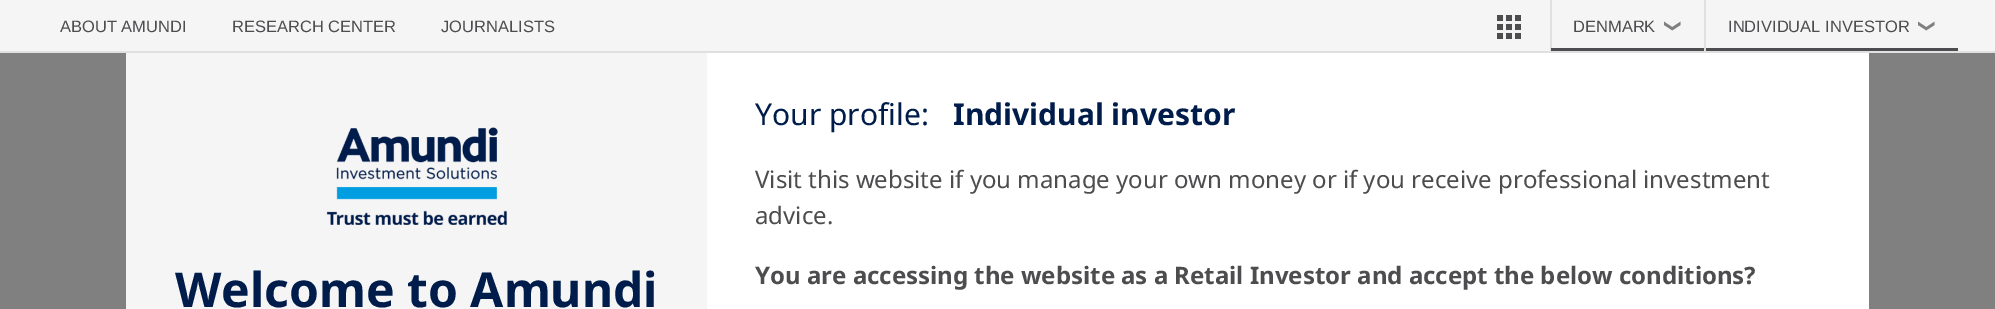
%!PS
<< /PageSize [1995 309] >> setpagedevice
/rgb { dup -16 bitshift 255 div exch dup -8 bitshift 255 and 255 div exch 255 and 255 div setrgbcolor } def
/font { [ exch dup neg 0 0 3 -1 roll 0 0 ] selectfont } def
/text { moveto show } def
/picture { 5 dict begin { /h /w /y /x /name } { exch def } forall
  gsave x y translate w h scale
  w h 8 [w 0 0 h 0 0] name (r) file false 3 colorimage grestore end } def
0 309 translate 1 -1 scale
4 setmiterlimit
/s1 { /LiberationSans-Regular 16.5 font 16#4D4D4F rgb } def
/s2 { /NotoSans-Bold 48 font 16#001C4B rgb } def
/s3 { /NotoSans-Regular 30 font 16#001C4B rgb } def
/s4 { /NotoSans-Bold 30 font 16#001C4B rgb } def
/s5 { /NotoSans-Regular 24 font 16#4D4D4F rgb } def
/s6 { /NotoSans-Bold 24 font 16#4D4D4F rgb } def
16#808080 rgb
0 0 1995 309 rectfill
16#F5F5F5 rgb
0 0 1995 51 rectfill
16#E0E0E0 rgb
0 51 1995 2 rectfill
s1
(ABOUT AMUNDI) 60 32 text
(RESEARCH CENTER) 232 32 text
(JOURNALISTS) 441 32 text
(pic1.raw) 1497 15 24 24 picture
16#E0E0E0 rgb
1550 0 2 51 rectfill
16#4D4D4F rgb
1551 48 153 3 rectfill
(DENMARK) 1573 32 text
/DejaVuSans-Regular 16.5 font
16#7F7F81 rgb
gsave 1668 19 translate 90 rotate 0 0 moveto (❯) show grestore
16#E0E0E0 rgb
1704 0 2 51 rectfill
16#4D4D4F rgb
1706 48 252 3 rectfill
s1
(INDIVIDUAL INVESTOR) 1728 32 text
/DejaVuSans-Regular 16.5 font
16#7F7F81 rgb
gsave 1922 19 translate 90 rotate 0 0 moveto (❯) show grestore
16#F5F5F5 rgb
126 53 581 256 rectfill
(pic2.raw) 326 127 181 98 picture
s2
(Welcome to Amundi) 175 307 text
16#FFFFFF rgb
707 53 1162 256 rectfill
s3
(Your profile:) 755 125 text
s4
(Individual investor) 953 125 text
s5
(Visit this website if you manage your own money or if you receive professional investment) 755 188 text
(advice.) 755 224 text
s6
(You are accessing the website as a Retail Investor and accept the below conditions?) 755 284 text
showpage
